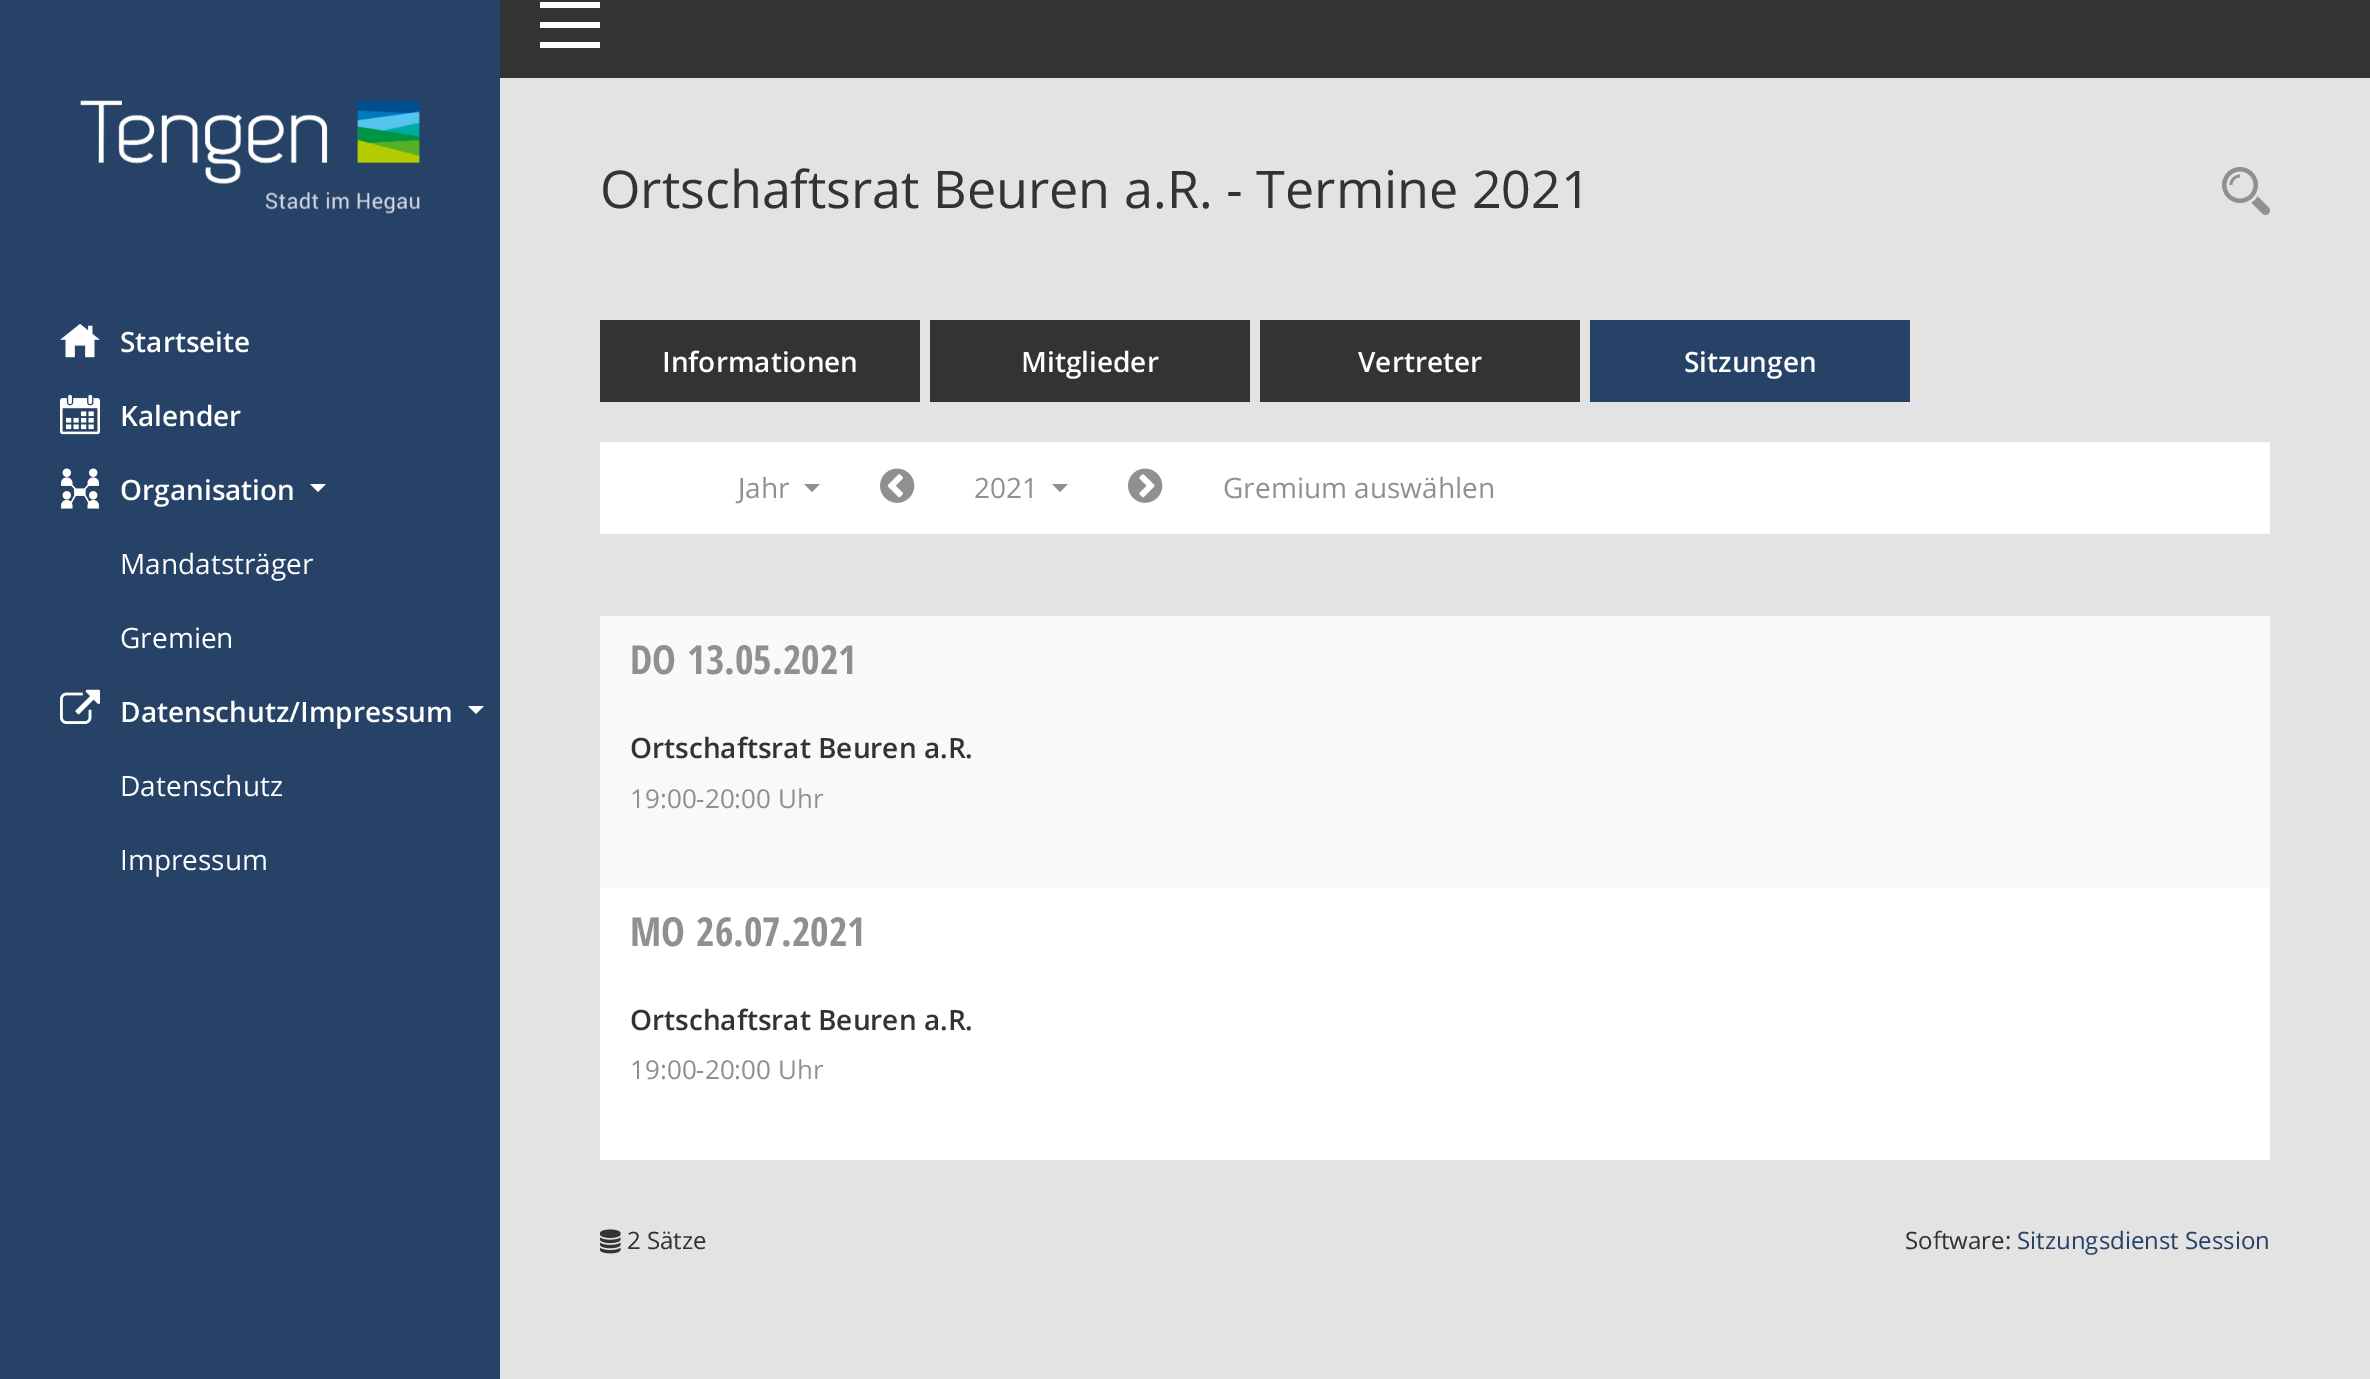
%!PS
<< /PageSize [2370 1379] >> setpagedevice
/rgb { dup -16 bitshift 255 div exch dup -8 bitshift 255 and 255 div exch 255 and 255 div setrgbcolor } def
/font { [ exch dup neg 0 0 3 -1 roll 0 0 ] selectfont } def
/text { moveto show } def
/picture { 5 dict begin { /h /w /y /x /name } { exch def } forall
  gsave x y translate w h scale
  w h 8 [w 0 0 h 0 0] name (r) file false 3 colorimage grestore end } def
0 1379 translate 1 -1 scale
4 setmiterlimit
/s1 { /OpenSans-SemiBold 28 font 16#FFFFFF rgb } def
/s2 { /OpenSans-Regular 28 font 16#FFFFFF rgb } def
/s3 { /OpenSans-Regular 52 font 16#333333 rgb } def
/s4 { /OpenSans-Regular 28 font 16#909090 rgb } def
/s5 { /OpenSansCondensed-Bold 40 font 16#909090 rgb } def
/s6 { /OpenSans-SemiBold 28 font 16#333333 rgb } def
/s7 { /OpenSans-Regular 26 font 16#909090 rgb } def
/s8 { /OpenSans-Regular 24 font 16#333333 rgb } def
/s9 { /OpenSans-Regular 24 font 16#264267 rgb } def
16#E3E3E3 rgb
0 0 2370 1379 rectfill
16#264267 rgb
0 0 500 1379 rectfill
(pic1.raw) 80 100 340 114 picture
(pic2.raw) 60 324 40 34 picture
s1
(Startseite) 120 352 text
(pic3.raw) 60 394 40 41 picture
(Kalender) 120 426 text
(pic4.raw) 61 468 38 41 picture
(Organisation) 120 500 text
310 484 moveto 326 484 lineto 318 492 lineto closepath fill
s2
(Mandatsträger) 120 574 text
(Gremien) 120 648 text
(pic5.raw) 60 689 40 35 picture
s1
(Datenschutz/Impressum) 120 722 text
468 706 moveto 484 706 lineto 476 714 lineto closepath fill
s2
(Datenschutz) 120 796 text
(Impressum) 120 870 text
16#333333 rgb
500 0 1870 78 rectfill
16#FFFFFF rgb
540 2 60 6 rectfill
540 22 60 6 rectfill
540 42 60 6 rectfill
s3
(Ortschaftsrat Beuren a.R. - Termine 2021) 600 208 text
(pic6.raw) 2222 167 48 48 picture
16#DEE2E6 rgb
920 400 1350 2 rectfill
16#333333 rgb
600 320 320 82 rectfill
s1
(Informationen) 662 372 text
16#333333 rgb
930 320 320 82 rectfill
s1
(Mitglieder) 1021 372 text
16#333333 rgb
1260 320 320 82 rectfill
s1
(Vertreter) 1358 372 text
16#264267 rgb
1590 320 320 82 rectfill
s1
(Sitzungen) 1684 372 text
600 442 1670 92 rectfill
s4
(Jahr) 738 498 text
804 484 moveto 820 484 lineto 812 492 lineto closepath fill
(pic7.raw) 880 468 35 35 picture
(2021) 974 498 text
1052 484 moveto 1068 484 lineto 1060 492 lineto closepath fill
(pic8.raw) 1128 468 35 35 picture
(Gremium auswählen) 1223 498 text
16#FFFFFF rgb
600 888 1670 272 rectfill
16#F9F9F9 rgb
600 616 1670 272 rectfill
s5
(DO) 630 674 text
(13.05.2021) 687 674 text
s6
(Ortschaftsrat Beuren a.R.) 630 758 text
s7
(19:00-20:00 Uhr) 630 808 text
s5
(MO) 630 946 text
(26.07.2021) 696 946 text
s6
(Ortschaftsrat Beuren a.R.) 630 1030 text
s7
(19:00-20:00 Uhr) 630 1079 text
(pic9.raw) 600 1229 21 25 picture
s8
(2 Sätze) 627 1249 text
(Software:) 1905 1249 text
s9
(Sitzungsdienst Session) 2017 1249 text
showpage
